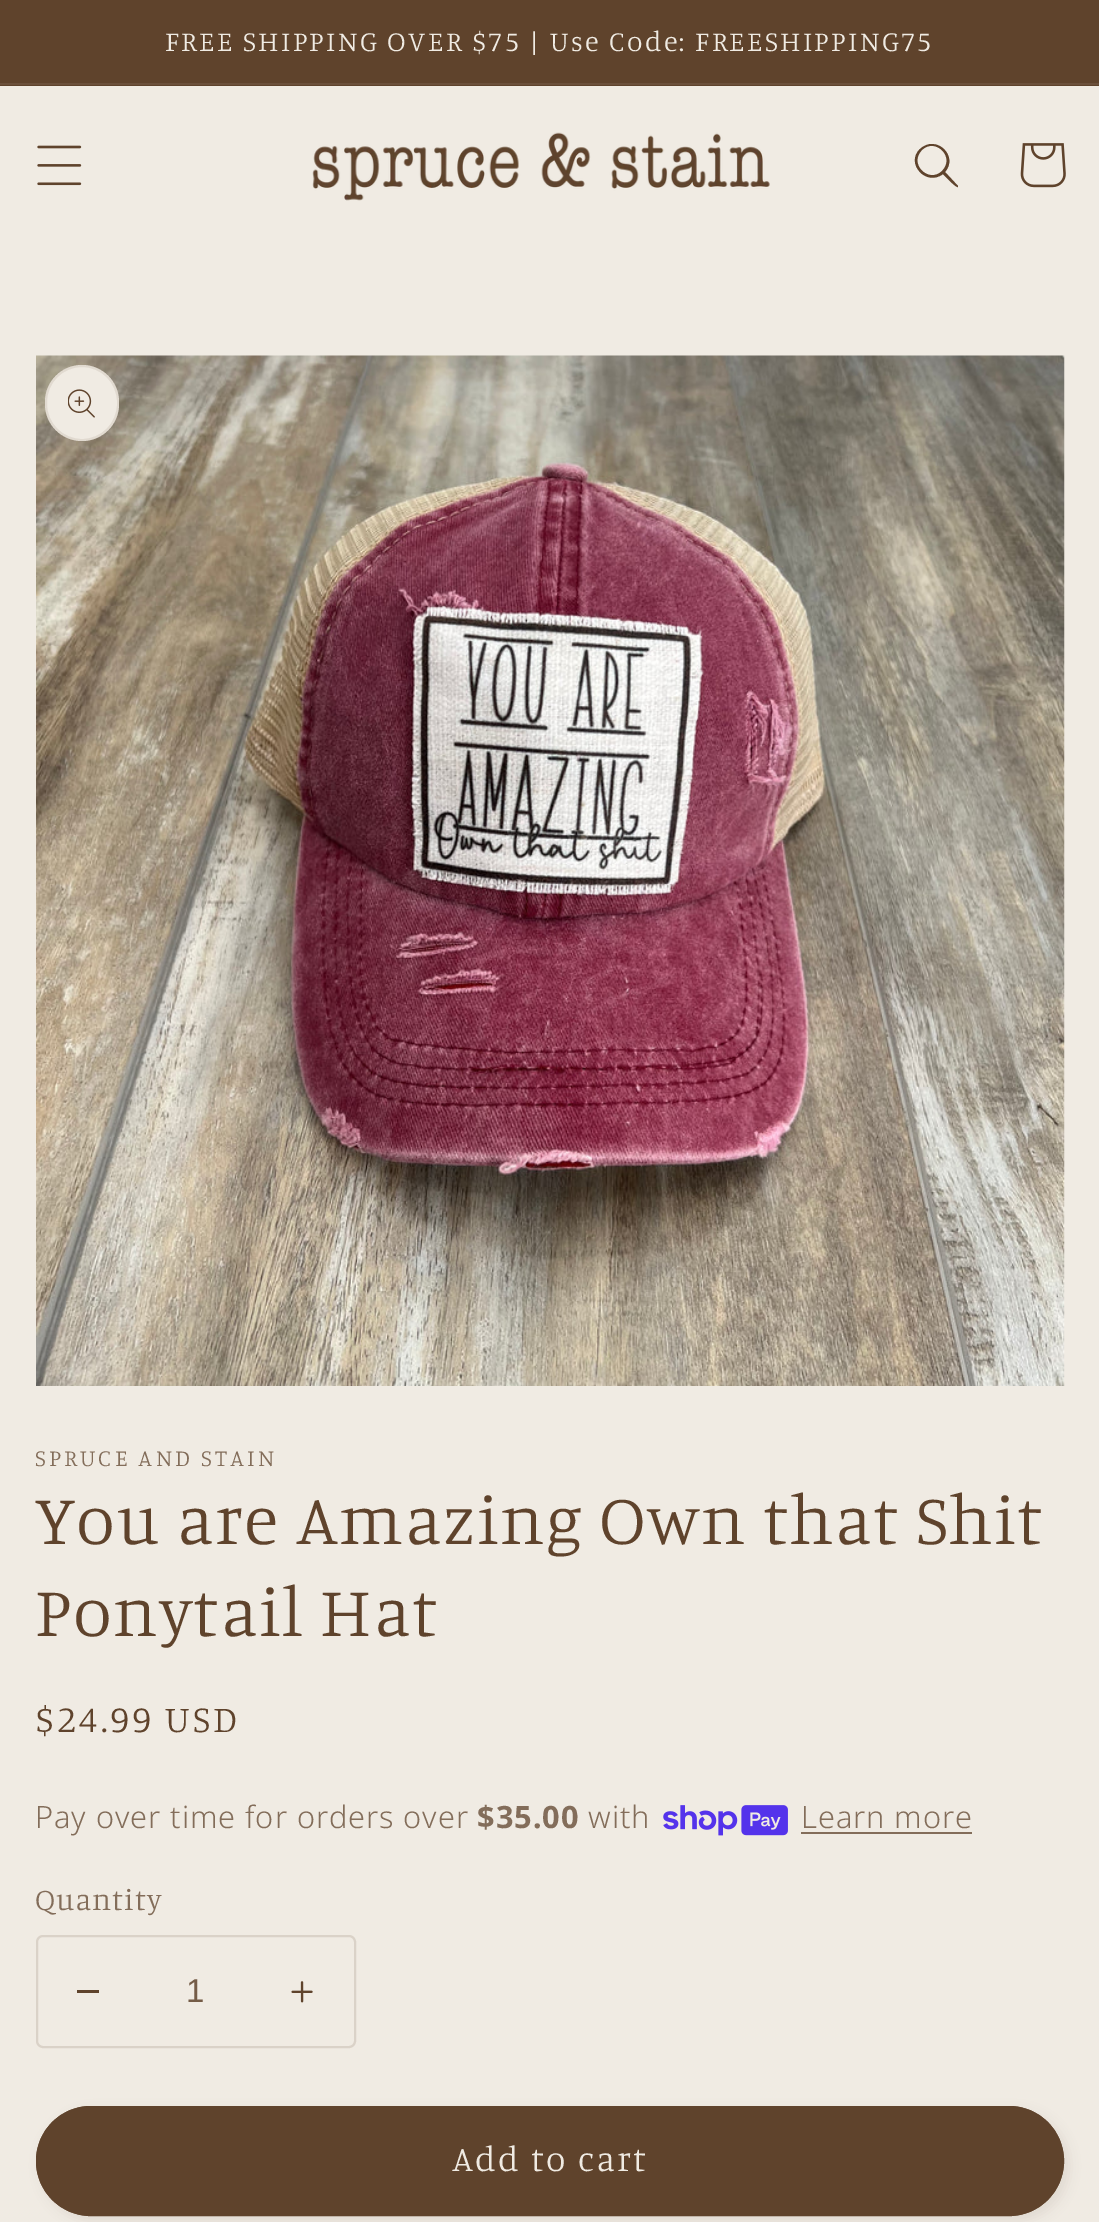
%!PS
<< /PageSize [1099 2222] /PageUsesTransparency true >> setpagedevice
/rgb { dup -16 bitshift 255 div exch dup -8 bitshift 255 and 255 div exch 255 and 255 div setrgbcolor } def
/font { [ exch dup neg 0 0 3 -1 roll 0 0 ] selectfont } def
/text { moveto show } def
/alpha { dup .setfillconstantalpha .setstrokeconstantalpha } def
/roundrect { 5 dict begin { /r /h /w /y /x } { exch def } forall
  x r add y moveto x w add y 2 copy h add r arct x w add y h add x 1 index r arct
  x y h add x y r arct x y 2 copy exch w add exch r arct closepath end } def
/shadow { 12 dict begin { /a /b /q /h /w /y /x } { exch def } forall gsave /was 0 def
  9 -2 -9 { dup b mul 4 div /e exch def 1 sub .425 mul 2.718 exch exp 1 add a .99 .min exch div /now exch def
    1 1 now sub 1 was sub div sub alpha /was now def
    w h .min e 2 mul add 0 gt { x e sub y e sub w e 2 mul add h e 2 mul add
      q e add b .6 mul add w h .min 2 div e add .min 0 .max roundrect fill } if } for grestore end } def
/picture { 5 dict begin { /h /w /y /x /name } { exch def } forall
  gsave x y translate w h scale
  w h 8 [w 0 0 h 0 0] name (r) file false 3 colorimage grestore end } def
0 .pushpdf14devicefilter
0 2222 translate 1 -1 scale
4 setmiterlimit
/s1 { /LiberationSans-Regular 33 font 16#755C47 rgb } def
16#F0EBE3 rgb
0 0 1099 2222 rectfill
16#5F432C rgb
0 0 1099 86 rectfill
16#6B503B rgb
0 83 1099 2 rectfill
/Manuale-Light 28.35 font
16#F0EBE3 rgb
165 51 moveto 2.35 0 (FREE SHIPPING OVER $75 | Use Code: FREESHIPPING75) ashow
(pic1.raw) 37 145 45 41 picture
(pic2.raw) 312 132 458 69 picture
16#5F432C rgb
942 171 moveto 929 184 908 164 922 150 curveto 935 137 956 157 942 171 curveto closepath 943 174 moveto 926 187 905 163 920 149 curveto 936 134 959 156 945 172 curveto 958 186 lineto 958 187 lineto 956 188 945 176 943 174 curveto closepath eofill
(pic3.raw) 1020 143 46 45 picture
(pic4.raw) 36 355 1029 1031 picture
16#F0EBE3 rgb
45 365 74 76 37 roundrect fill
0.1 alpha
16#5F432C rgb
2 setlinewidth
46 366 72 74 36 roundrect stroke
1 alpha
(pic5.raw) 68 389 27 29 picture
/Manuale-Light 23.6 font
16#836D5A rgb
35 1466 moveto 3.1 0 (SPRUCE AND STAIN) ashow
/Manuale-Light 70.9 font
16#5F432C rgb
35 1544 moveto 1.4 0 (You are Amazing Own that Shit) ashow
35 1636 moveto 1.4 0 (Ponytail Hat) ashow
/Manuale-Light 37.75 font
35 1732 moveto 3.1 0 ($24.99 USD) ashow
/NotoSans-Light 30.75 font
16#836D5A rgb
35 1828 moveto 0.95 0 (Pay over time for orders over) ashow
/NotoSans-Bold 30.75 font
477 1828 moveto 0.95 0 ($35.00) ashow
/NotoSans-Light 30.75 font
588 1828 moveto 0.95 0 (with) ashow
(pic6.raw) 663 1805 125 31 picture
801 1828 moveto 0.95 0 (Learn more) ashow
801 1832 171 2 rectfill
/Manuale-Light 30.75 font
35 1910 moveto 0.95 0 (Quantity) ashow
16#5F432C rgb
77 1990 22 3 rectfill
(pic7.raw) 291 1981 22 22 picture
0.15 alpha
37 1936 318 111 6 roundrect stroke
1 alpha
s1
(1) 186 2002 text
16#5F432C rgb
41 2111 1028 110 55 5.5 0.1 shadow
36 2106 1028 110 55 roundrect fill
37 2107 1026 108 54 roundrect stroke
/Manuale-Light 35.5 font
16#F0EBE3 rgb
452 2171 moveto 2.35 0 (Add to cart) ashow
.poppdf14devicefilter showpage
